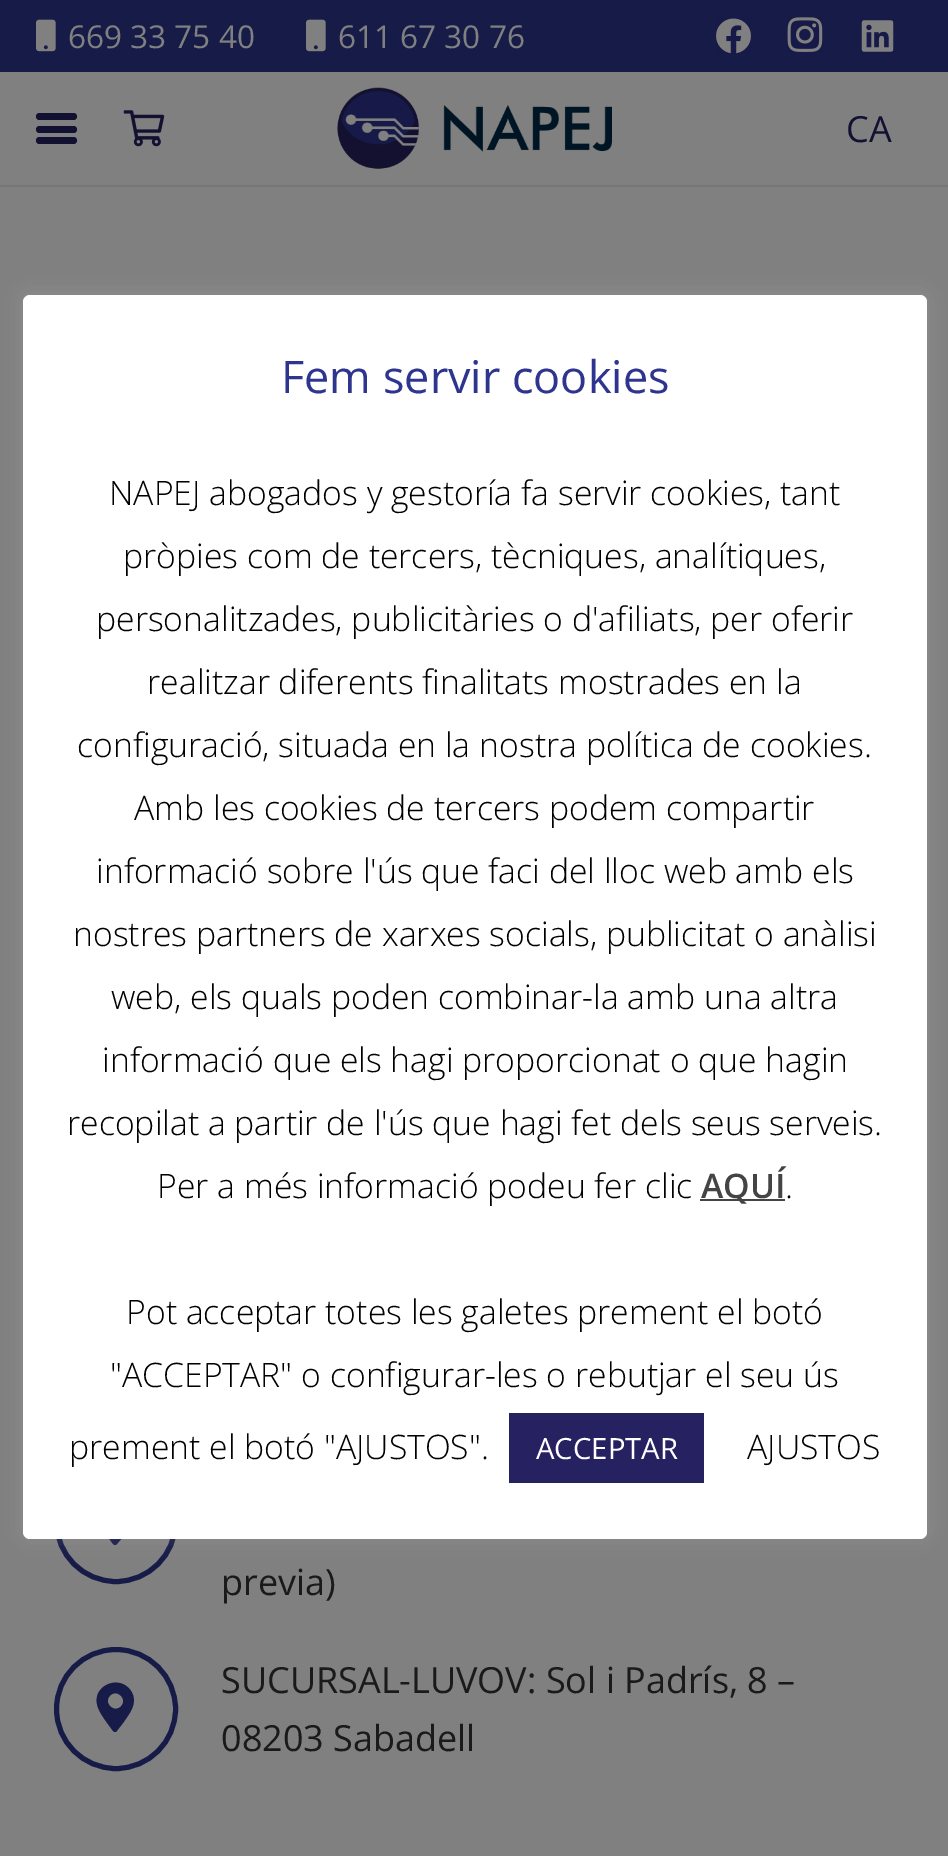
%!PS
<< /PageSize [948 1856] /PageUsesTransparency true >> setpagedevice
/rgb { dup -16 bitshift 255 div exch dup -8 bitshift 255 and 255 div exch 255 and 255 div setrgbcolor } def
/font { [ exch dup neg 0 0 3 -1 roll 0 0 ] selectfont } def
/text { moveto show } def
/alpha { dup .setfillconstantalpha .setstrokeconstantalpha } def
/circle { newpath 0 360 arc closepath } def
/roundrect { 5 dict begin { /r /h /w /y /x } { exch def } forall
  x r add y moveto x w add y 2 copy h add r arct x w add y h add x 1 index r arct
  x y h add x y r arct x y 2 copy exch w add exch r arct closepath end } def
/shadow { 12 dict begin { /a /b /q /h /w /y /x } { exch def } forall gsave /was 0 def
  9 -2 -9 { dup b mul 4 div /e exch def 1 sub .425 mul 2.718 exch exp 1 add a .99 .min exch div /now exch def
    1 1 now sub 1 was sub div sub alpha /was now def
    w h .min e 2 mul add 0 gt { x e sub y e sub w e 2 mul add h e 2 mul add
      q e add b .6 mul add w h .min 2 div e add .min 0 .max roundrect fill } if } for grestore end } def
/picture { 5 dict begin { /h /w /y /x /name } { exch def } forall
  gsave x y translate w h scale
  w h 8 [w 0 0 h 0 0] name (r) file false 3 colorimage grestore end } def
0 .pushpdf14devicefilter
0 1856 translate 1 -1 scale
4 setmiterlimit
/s1 { /OpenSans-Regular 31.5 font 16#808080 rgb } def
/s2 { /OpenSans-Regular 36 font 16#131131 rgb } def
/s3 { /OpenSans-Regular 36 font 16#1A1A1A rgb } def
/s4 { /OpenSans-Regular 45 font 16#2E358F rgb } def
/s5 { /OpenSans-Light 33.75 font 16#000000 rgb } def
/s6 { /OpenSans-SemiBold 33.75 font 16#444444 rgb } def
/s7 { /OpenSans-Regular 29.25 font 16#FFFFFF rgb } def
16#808080 rgb
0 0 948 1856 rectfill
16#171B48 rgb
0 0 948 72 rectfill
(pic1.raw) 36 19 20 33 picture
s1
(669 33 75 40) 68 48 text
(pic1.raw) 306 19 20 33 picture
(611 67 30 76) 338 48 text
(pic2.raw) 716 18 35 36 picture
(pic3.raw) 787 17 36 35 picture
(pic4.raw) 861 20 33 32 picture
16#767676 rgb
0 184 moveto 0 187 lineto 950 187 lineto 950 74 lineto 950 184 lineto closepath fill
16#808080 rgb
0 184 948 1 rectfill
16#131131 rgb
36 126 41 7 3.5 roundrect fill
36 113 41 7 3.5 roundrect fill
36 137 41 7 3.5 roundrect fill
(pic5.raw) 123 110 42 37 picture
(pic6.raw) 337 87 275 82 picture
s2
(CA) 846 142 text
16#171B48 rgb
5 setlinewidth
116 1522 59.5 circle stroke
113 1544 moveto 109 1538 98 1525 97 1518 curveto 93 1498 120 1487 131 1504 curveto 139 1516 129 1527 123 1537 curveto 116 1545 lineto 115 1545 114 1545 113 1544 curveto closepath 110 1520 moveto 117 1527 128 1516 121 1509 curveto 114 1502 103 1513 110 1520 curveto closepath fill
s3
(previa\)) 221 1595 text
16#171B48 rgb
116 1709 59.5 circle stroke
113 1731 moveto 109 1725 98 1712 97 1704 curveto 93 1685 120 1674 131 1691 curveto 139 1703 129 1714 123 1723 curveto 116 1732 lineto 115 1732 114 1732 113 1731 curveto closepath 110 1706 moveto 117 1714 128 1703 121 1696 curveto 114 1688 103 1699 110 1706 curveto closepath fill
s3
(SUCURSAL-LUVOV: Sol i Padrís, 8 –) 221 1693 text
(08203 Sabadell) 221 1751 text
16#ACABAB rgb
23 293 904 1244 7 11 0.3 shadow
16#FFFFFF rgb
23 295 904 1244 7 roundrect fill
s4
(Fem servir cookies) 281 393 text
s5
(NAPEJ abogados y gestoría fa servir cookies, tant) 109 505 text
(pròpies com de tercers, tècniques, analítiques,) 123 568 text
(personalitzades, publicitàries o d'afiliats, per oferir) 96 631 text
(realitzar diferents finalitats mostrades en la) 147 694 text
(configuració, situada en la nostra política de cookies.) 77 757 text
(Amb les cookies de tercers podem compartir) 134 820 text
(informació sobre l'ús que faci del lloc web amb els) 96 883 text
(nostres partners de xarxes socials, publicitat o anàlisi) 73 946 text
(web, els quals poden combinar-la amb una altra) 111 1009 text
(informació que els hagi proporcionat o que hagin) 102 1072 text
(recopilat a partir de l'ús que hagi fet dels seus serveis.) 67 1135 text
(Per a més informació podeu fer clic) 157 1198 text
16#444444 rgb
700 1199 85 2 rectfill
s6
(AQUÍ) 701 1198 text
s5
(.) 785 1198 text
(Pot acceptar totes les galetes prement el botó) 126 1324 text
("ACCEPTAR" o configurar-les o rebutjar el seu ús) 110 1387 text
(prement el botó "AJUSTOS".) 69 1459 text
16#262161 rgb
509 1413 195 70 rectfill
s7
(ACCEPTAR) 536 1459 text
s5
(AJUSTOS) 747 1459 text
.poppdf14devicefilter showpage
